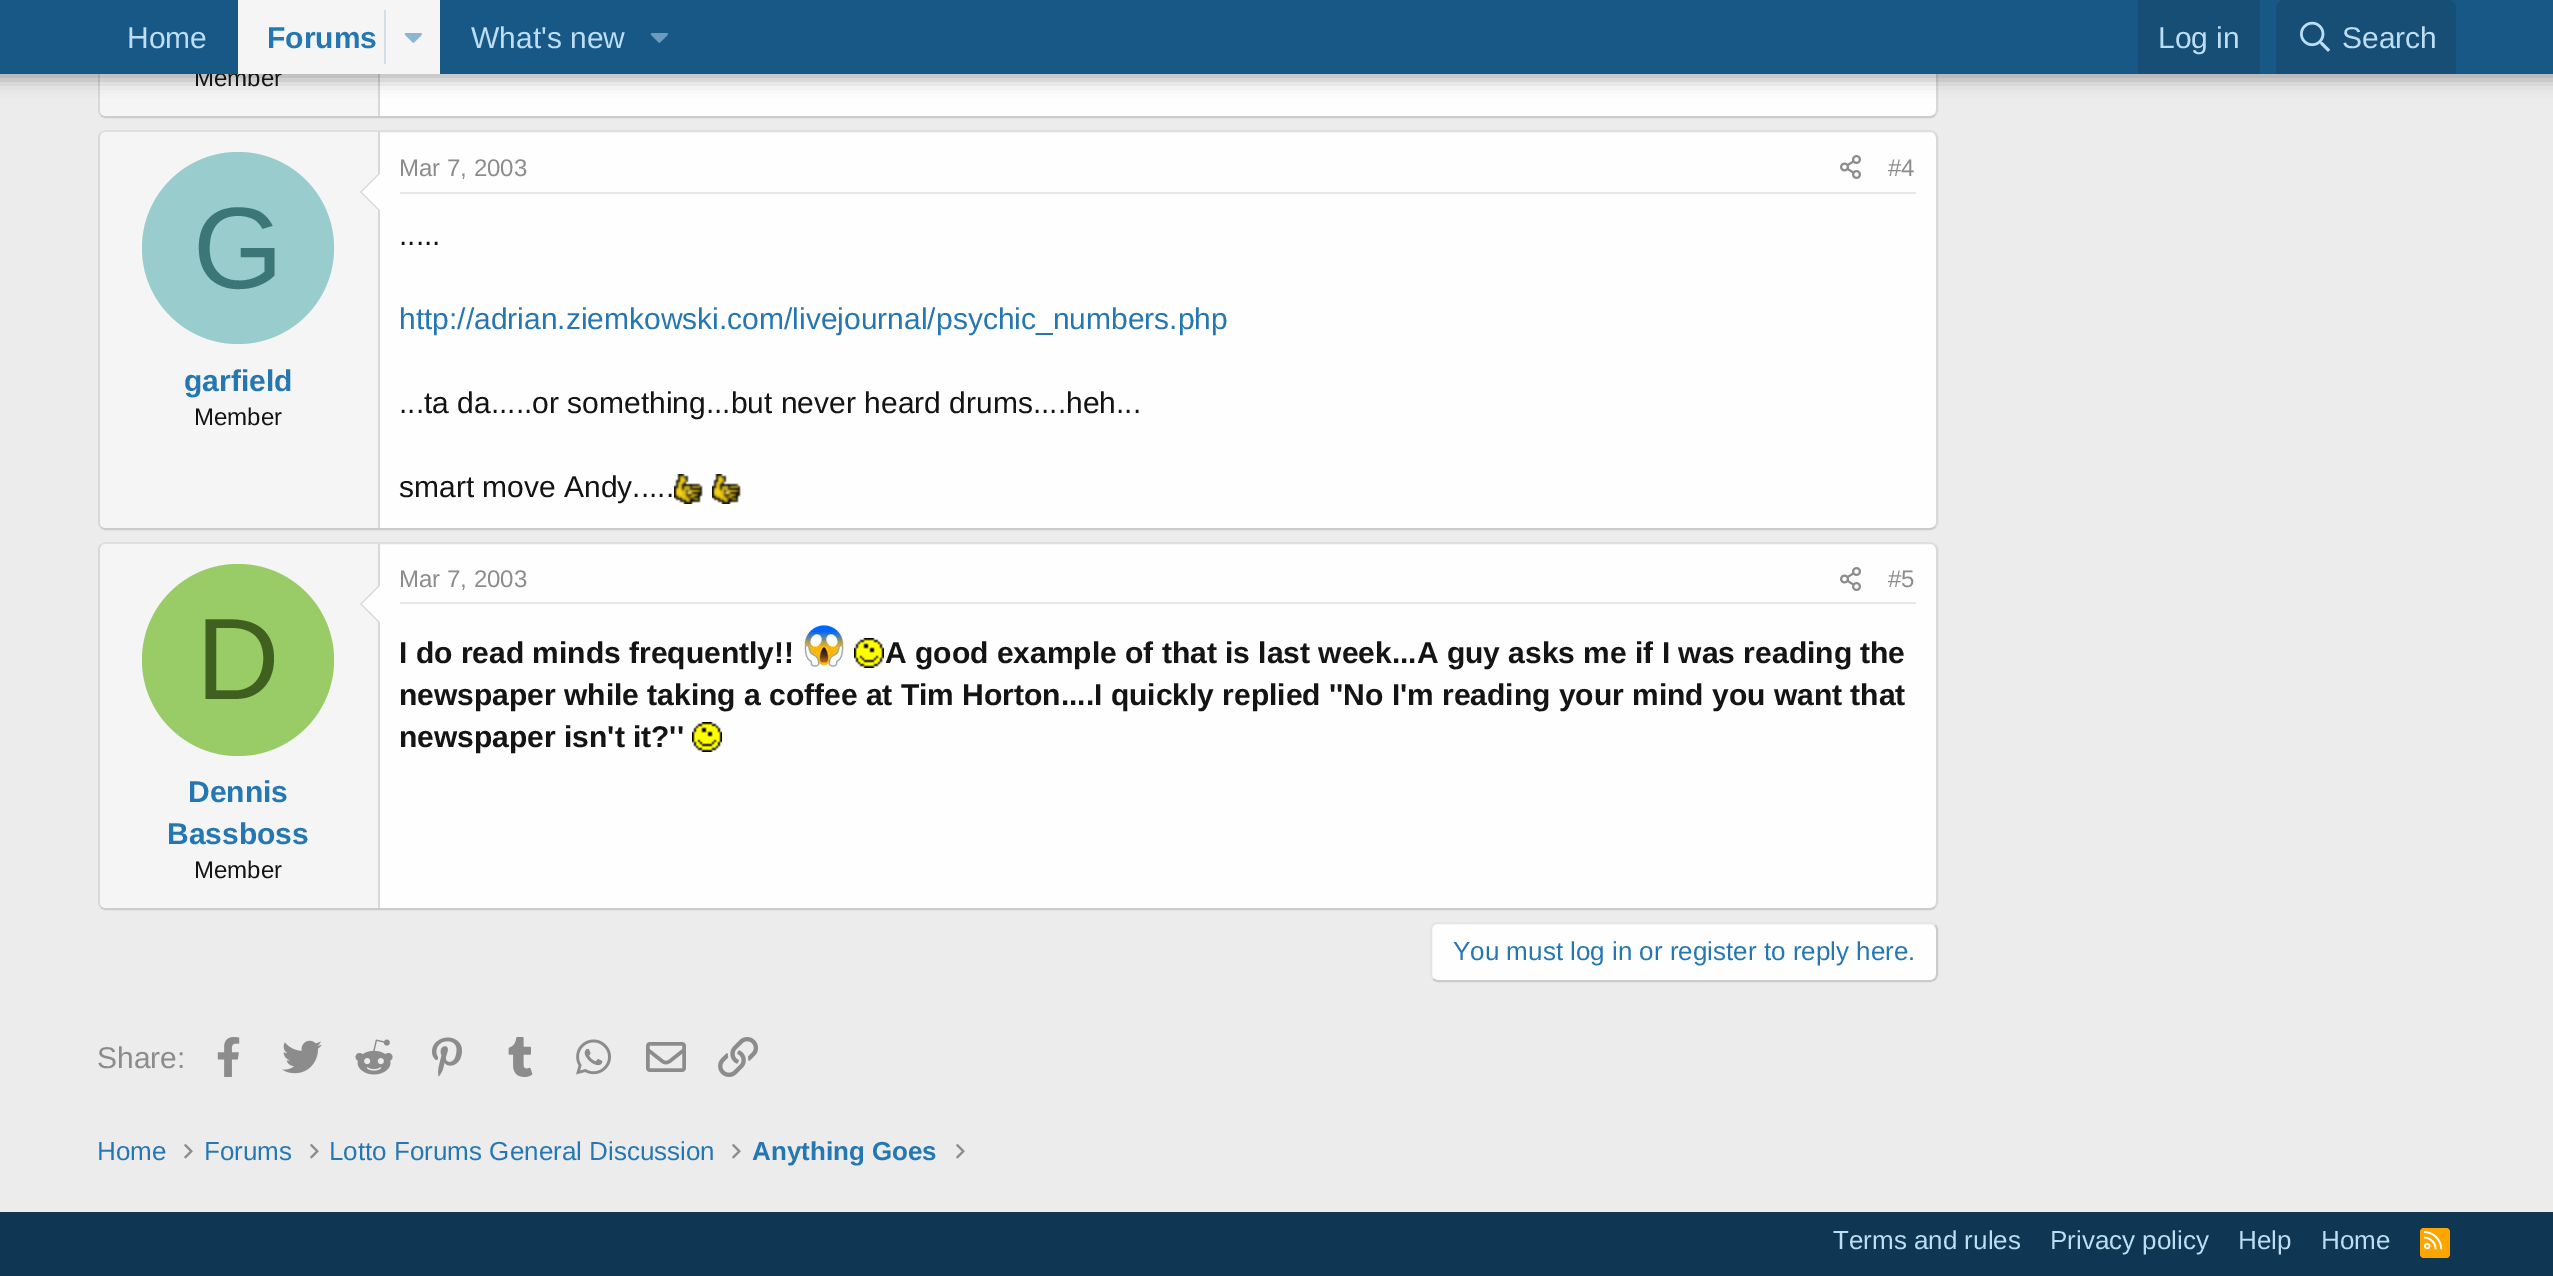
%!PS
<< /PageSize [2553 1276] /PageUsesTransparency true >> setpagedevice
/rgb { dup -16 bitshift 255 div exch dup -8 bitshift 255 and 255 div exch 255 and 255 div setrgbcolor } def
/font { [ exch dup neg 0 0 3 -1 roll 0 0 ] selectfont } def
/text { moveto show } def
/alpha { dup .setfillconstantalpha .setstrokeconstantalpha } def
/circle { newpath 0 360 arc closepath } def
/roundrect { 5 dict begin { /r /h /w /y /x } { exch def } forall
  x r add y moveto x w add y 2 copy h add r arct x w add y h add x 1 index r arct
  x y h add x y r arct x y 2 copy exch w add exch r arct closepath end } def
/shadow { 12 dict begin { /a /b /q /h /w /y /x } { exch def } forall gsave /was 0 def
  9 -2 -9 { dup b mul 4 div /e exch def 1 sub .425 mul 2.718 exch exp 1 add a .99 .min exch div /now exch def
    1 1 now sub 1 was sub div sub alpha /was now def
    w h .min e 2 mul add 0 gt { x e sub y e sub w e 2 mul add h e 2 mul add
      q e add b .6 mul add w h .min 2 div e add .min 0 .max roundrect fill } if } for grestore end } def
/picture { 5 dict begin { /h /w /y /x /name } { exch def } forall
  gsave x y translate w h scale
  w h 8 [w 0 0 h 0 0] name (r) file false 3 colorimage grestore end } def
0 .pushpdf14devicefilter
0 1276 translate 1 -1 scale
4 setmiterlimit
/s1 { /LiberationSans-Regular 24 font 16#141414 rgb } def
/s2 { /LiberationSans-Regular 30 font 16#BCDEF5 rgb } def
/s3 { /LiberationSans-Bold 30 font 16#2577B1 rgb } def
/s4 { /LiberationSans-Regular 116 font 16#3C7777 rgb } def
/s5 { /LiberationSans-Regular 24 font 16#8C8C8C rgb } def
/s6 { /LiberationSans-Regular 30 font 16#141414 rgb } def
/s7 { /LiberationSans-Regular 30 font 16#2577B1 rgb } def
/s8 { /LiberationSans-Regular 116 font 16#406020 rgb } def
/s9 { /LiberationSans-Bold 30 font 16#141414 rgb } def
/s10 { /LiberationSans-Regular 26 font 16#2577B1 rgb } def
/s11 { /LiberationSans-Regular 30 font 16#8C8C8C rgb } def
/s12 { /LiberationSans-Bold 26 font 16#2577B1 rgb } def
/s13 { /LiberationSans-Regular 26 font 16#BCDEF5 rgb } def
16#ECECEC rgb
0 0 2553 1276 rectfill
16#FEFEFE rgb
98 -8 1840 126 8 roundrect fill
16#D8D8D8 rgb
2 setlinewidth
1935 -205 moveto 1936.5 -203.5 1937 -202 1937 -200 curveto 1937 110 lineto 1937 112 1936.5 113.5 1935 115 curveto stroke
16#CBCBCB rgb
1935 115 moveto 1933.5 116.5 1932 117 1930 117 curveto 106 117 lineto 104 117 102.5 116.5 101 115 curveto stroke
16#D8D8D8 rgb
101 115 moveto 99.5 113.5 99 112 99 110 curveto 99 -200 lineto 99 -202 99.5 -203.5 101 -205 curveto stroke
16#F5F5F5 rgb
106 -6 moveto 380 -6 lineto 380 116 lineto 106 116 lineto 102.5 116 100 113.5 100 110 curveto 100 0 lineto 100 -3.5 102.5 -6 106 -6 curveto closepath fill
16#D8D8D8 rgb
378 74 2 42 rectfill
16#000000 rgb
-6 -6 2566 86 0 8 0.3 shadow
s1
(Member) 194 86 text
16#185886 rgb
0 0 2553 74 rectfill
s2
(Home) 127 48 text
16#F5F5F5 rgb
238 0 202 74 rectfill
s3
(Forums) 267 48 text
16#D1DFE9 rgb
384 10 2 54 rectfill
(pic1.raw) 404 33 18 10 picture
s2
(What's new) 471 48 text
(pic2.raw) 650 33 18 10 picture
16#174E75 rgb
2138 0 122 74 rectfill
s2
(Log in) 2158 48 text
16#174E75 rgb
2284 0 moveto 2448 0 lineto 2452.5 0 2456 3.5 2456 8 curveto 2456 74 lineto 2276 74 lineto 2276 8 lineto 2276 3.5 2279.5 0 2284 0 curveto closepath fill
(pic3.raw) 2300 21 30 31 picture
s2
(Search) 2342 48 text
16#FEFEFE rgb
98 130 1840 400 8 roundrect fill
16#DFDFDF rgb
101 133 moveto 102.5 131.5 104 131 106 131 curveto 1930 131 lineto 1932 131 1933.5 131.5 1935 133 curveto stroke
16#D8D8D8 rgb
1935 133 moveto 1936.5 134.5 1937 136 1937 138 curveto 1937 522 lineto 1937 524 1936.5 525.5 1935 527 curveto stroke
16#CBCBCB rgb
1935 527 moveto 1933.5 528.5 1932 529 1930 529 curveto 106 529 lineto 104 529 102.5 528.5 101 527 curveto stroke
16#D8D8D8 rgb
101 527 moveto 99.5 525.5 99 524 99 522 curveto 99 138 lineto 99 136 99.5 134.5 101 133 curveto stroke
16#F5F5F5 rgb
106 132 moveto 380 132 lineto 380 528 lineto 106 528 lineto 102.5 528 100 525.5 100 522 curveto 100 138 lineto 100 134.5 102.5 132 106 132 curveto closepath fill
16#D8D8D8 rgb
378 132 2 396 rectfill
380 172 moveto 380 212 lineto 360 192 lineto closepath fill
16#FEFEFE rgb
380 174 moveto 380 210 lineto 362 192 lineto closepath fill
16#99CCCC rgb
238 248 96 circle fill
s4
(G) 193 288 text
s3
(garfield) 184 391 text
s1
(Member) 194 425 text
16#E7E7E7 rgb
400 192 1516 2 rectfill
s5
(Mar 7, 2003) 399 176 text
(pic4.raw) 1840 155 21 24 picture
(#4) 1888 176 text
s6
(.....) 399 245 text
s7
(http://adrian.ziemkowski.com/livejournal/psychic_numbers.php) 399 329 text
s6
(...ta da.....or something...but never heard drums....heh...) 399 413 text
(smart move Andy.....) 399 497 text
(pic5.raw) 674 474 29 30 picture
(pic5.raw) 712 474 29 30 picture
16#FEFEFE rgb
98 542 1840 368 8 roundrect fill
16#DFDFDF rgb
101 545 moveto 102.5 543.5 104 543 106 543 curveto 1930 543 lineto 1932 543 1933.5 543.5 1935 545 curveto stroke
16#D8D8D8 rgb
1935 545 moveto 1936.5 546.5 1937 548 1937 550 curveto 1937 902 lineto 1937 904 1936.5 905.5 1935 907 curveto stroke
16#CBCBCB rgb
1935 907 moveto 1933.5 908.5 1932 909 1930 909 curveto 106 909 lineto 104 909 102.5 908.5 101 907 curveto stroke
16#D8D8D8 rgb
101 907 moveto 99.5 905.5 99 904 99 902 curveto 99 550 lineto 99 548 99.5 546.5 101 545 curveto stroke
16#F5F5F5 rgb
106 544 moveto 380 544 lineto 380 908 lineto 106 908 lineto 102.5 908 100 905.5 100 902 curveto 100 550 lineto 100 546.5 102.5 544 106 544 curveto closepath fill
16#D8D8D8 rgb
378 544 2 364 rectfill
380 584 moveto 380 624 lineto 360 604 lineto closepath fill
16#FEFEFE rgb
380 586 moveto 380 622 lineto 362 604 lineto closepath fill
16#99CC66 rgb
238 660 96 circle fill
s8
(D) 196 699 text
s3
(Dennis) 188 802 text
(Bassboss) 167 844 text
s1
(Member) 194 878 text
16#E7E7E7 rgb
400 602 1516 2 rectfill
s5
(Mar 7, 2003) 399 587 text
(pic4.raw) 1840 567 21 24 picture
(#5) 1888 587 text
s9
(I do read minds frequently!!) 399 663 text
(pic6.raw) 804 625 40 42 picture
(pic7.raw) 854 638 30 30 picture
(A good example of that is last week...A guy asks me if I was reading the) 885 663 text
(newspaper while taking a coffee at Tim Horton....I quickly replied ''No I'm reading your mind you want that) 399 705 text
(newspaper isn't it?'') 399 747 text
(pic7.raw) 692 722 30 30 picture
16#FEFEFE rgb
1430 922 508 60 8 roundrect fill
16#CBCBCB rgb
1935 925 moveto 1936.5 926.5 1937 928 1937 930 curveto 1937 974 lineto 1937 976 1936.5 977.5 1935 979 curveto 1933.5 980.5 1932 981 1930 981 curveto 1438 981 lineto 1436 981 1434.5 980.5 1433 979 curveto stroke
16#E5E5E5 rgb
1433 979 moveto 1431.5 977.5 1431 976 1431 974 curveto 1431 930 lineto 1431 928 1431.5 926.5 1433 925 curveto 1434.5 923.5 1436 923 1438 923 curveto 1930 923 lineto 1932 923 1933.5 923.5 1935 925 curveto stroke
s10
(You must log in or register to reply here.) 1453 960 text
s11
(Share:) 97 1068 text
(pic8.raw) 217 1037 23 40 picture
(pic9.raw) 282 1040 40 34 picture
(pic10.raw) 355 1039 38 36 picture
(pic11.raw) 432 1037 30 40 picture
(pic12.raw) 508 1037 25 40 picture
(pic13.raw) 576 1039 35 36 picture
(pic14.raw) 646 1042 40 30 picture
(pic15.raw) 718 1037 40 40 picture
s10
(Home) 97 1160 text
(pic16.raw) 184 1144 9 15 picture
(Forums) 204 1160 text
(pic16.raw) 310 1144 9 15 picture
(Lotto Forums General Discussion) 329 1160 text
(pic16.raw) 732 1144 9 15 picture
s12
(Anything Goes) 752 1160 text
(pic16.raw) 956 1144 9 15 picture
16#0F3652 rgb
0 1212 2553 64 rectfill
s13
(Terms and rules) 1833 1249 text
(Privacy policy) 2050 1249 text
(Help) 2238 1249 text
(Home) 2321 1249 text
16#FFA500 rgb
2420 1228 30 30 4 roundrect fill
(pic17.raw) 2424 1231 19 19 picture
.poppdf14devicefilter showpage
